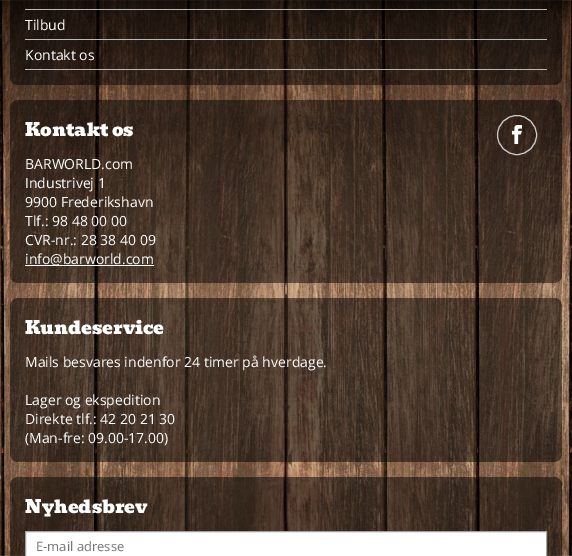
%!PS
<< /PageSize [572 556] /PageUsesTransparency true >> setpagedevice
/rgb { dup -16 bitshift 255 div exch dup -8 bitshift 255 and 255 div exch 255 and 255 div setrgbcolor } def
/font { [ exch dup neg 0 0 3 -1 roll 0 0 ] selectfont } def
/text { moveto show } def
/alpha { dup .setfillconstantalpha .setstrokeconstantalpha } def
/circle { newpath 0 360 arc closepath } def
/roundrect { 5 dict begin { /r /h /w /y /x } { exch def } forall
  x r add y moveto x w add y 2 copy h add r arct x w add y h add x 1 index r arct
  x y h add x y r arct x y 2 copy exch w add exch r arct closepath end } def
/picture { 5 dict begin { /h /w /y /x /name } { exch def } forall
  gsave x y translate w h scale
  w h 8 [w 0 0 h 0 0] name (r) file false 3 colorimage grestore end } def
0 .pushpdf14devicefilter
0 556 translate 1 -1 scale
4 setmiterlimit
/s1 { /OpenSans-Regular 14 font 16#FFFFFF rgb } def
/s2 { /Bevan-Regular 18 font 16#FFFFFF rgb } def
/s3 { /OpenSans-Regular 13 font 16#757575 rgb } def
16#FFFFFF rgb
0 0 572 556 rectfill
(pic1.raw) 0 0 572 556 picture
0.5 alpha
16#000000 rgb
10 -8 552 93 8 roundrect fill
1 alpha
16#B9B9B9 rgb
25 9 522 1 rectfill
25 39 522 1 rectfill
s1
(Tilbud) 25 30 text
16#B9B9B9 rgb
25 69 522 1 rectfill
s1
(Kontakt os) 25 60 text
0.5 alpha
16#000000 rgb
10 100 552 183 8 roundrect fill
1 alpha
s2
(Kontakt os) 25 136 text
(pic2.raw) 512 125 10 19 picture
16#CCCCCC rgb
517 135 19.5 circle stroke
s1
(BARWORLD.com) 25 169 text
(Industrivej 1) 25 188 text
(9900 Frederikshavn) 25 207 text
(Tlf.: 98 48 00 00) 25 226 text
(CVR-nr.: 28 38 40 09) 25 245 text
25 265 129 1 rectfill
(info@barworld.com) 25 264 text
0.5 alpha
16#000000 rgb
10 298 552 164 8 roundrect fill
1 alpha
s2
(Kundeservice) 25 334 text
s1
(Mails besvares indenfor 24 timer på hverdage.) 25 367 text
(Lager og ekspedition) 25 405 text
(Direkte tlf.: 42 20 21 30) 25 424 text
(\(Man-fre: 09.00-17.00\)) 25 443 text
0.5 alpha
16#000000 rgb
10 477 552 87 8 roundrect fill
1 alpha
s2
(Nyhedsbrev) 25 513 text
25.5 531.5 moveto 546.5 531.5 lineto 546.5 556.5 lineto 25.5 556.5 lineto closepath gsave fill grestore
16#A1A1A1 rgb
stroke
s3
(E-mail adresse) 36 551 text
.poppdf14devicefilter showpage
